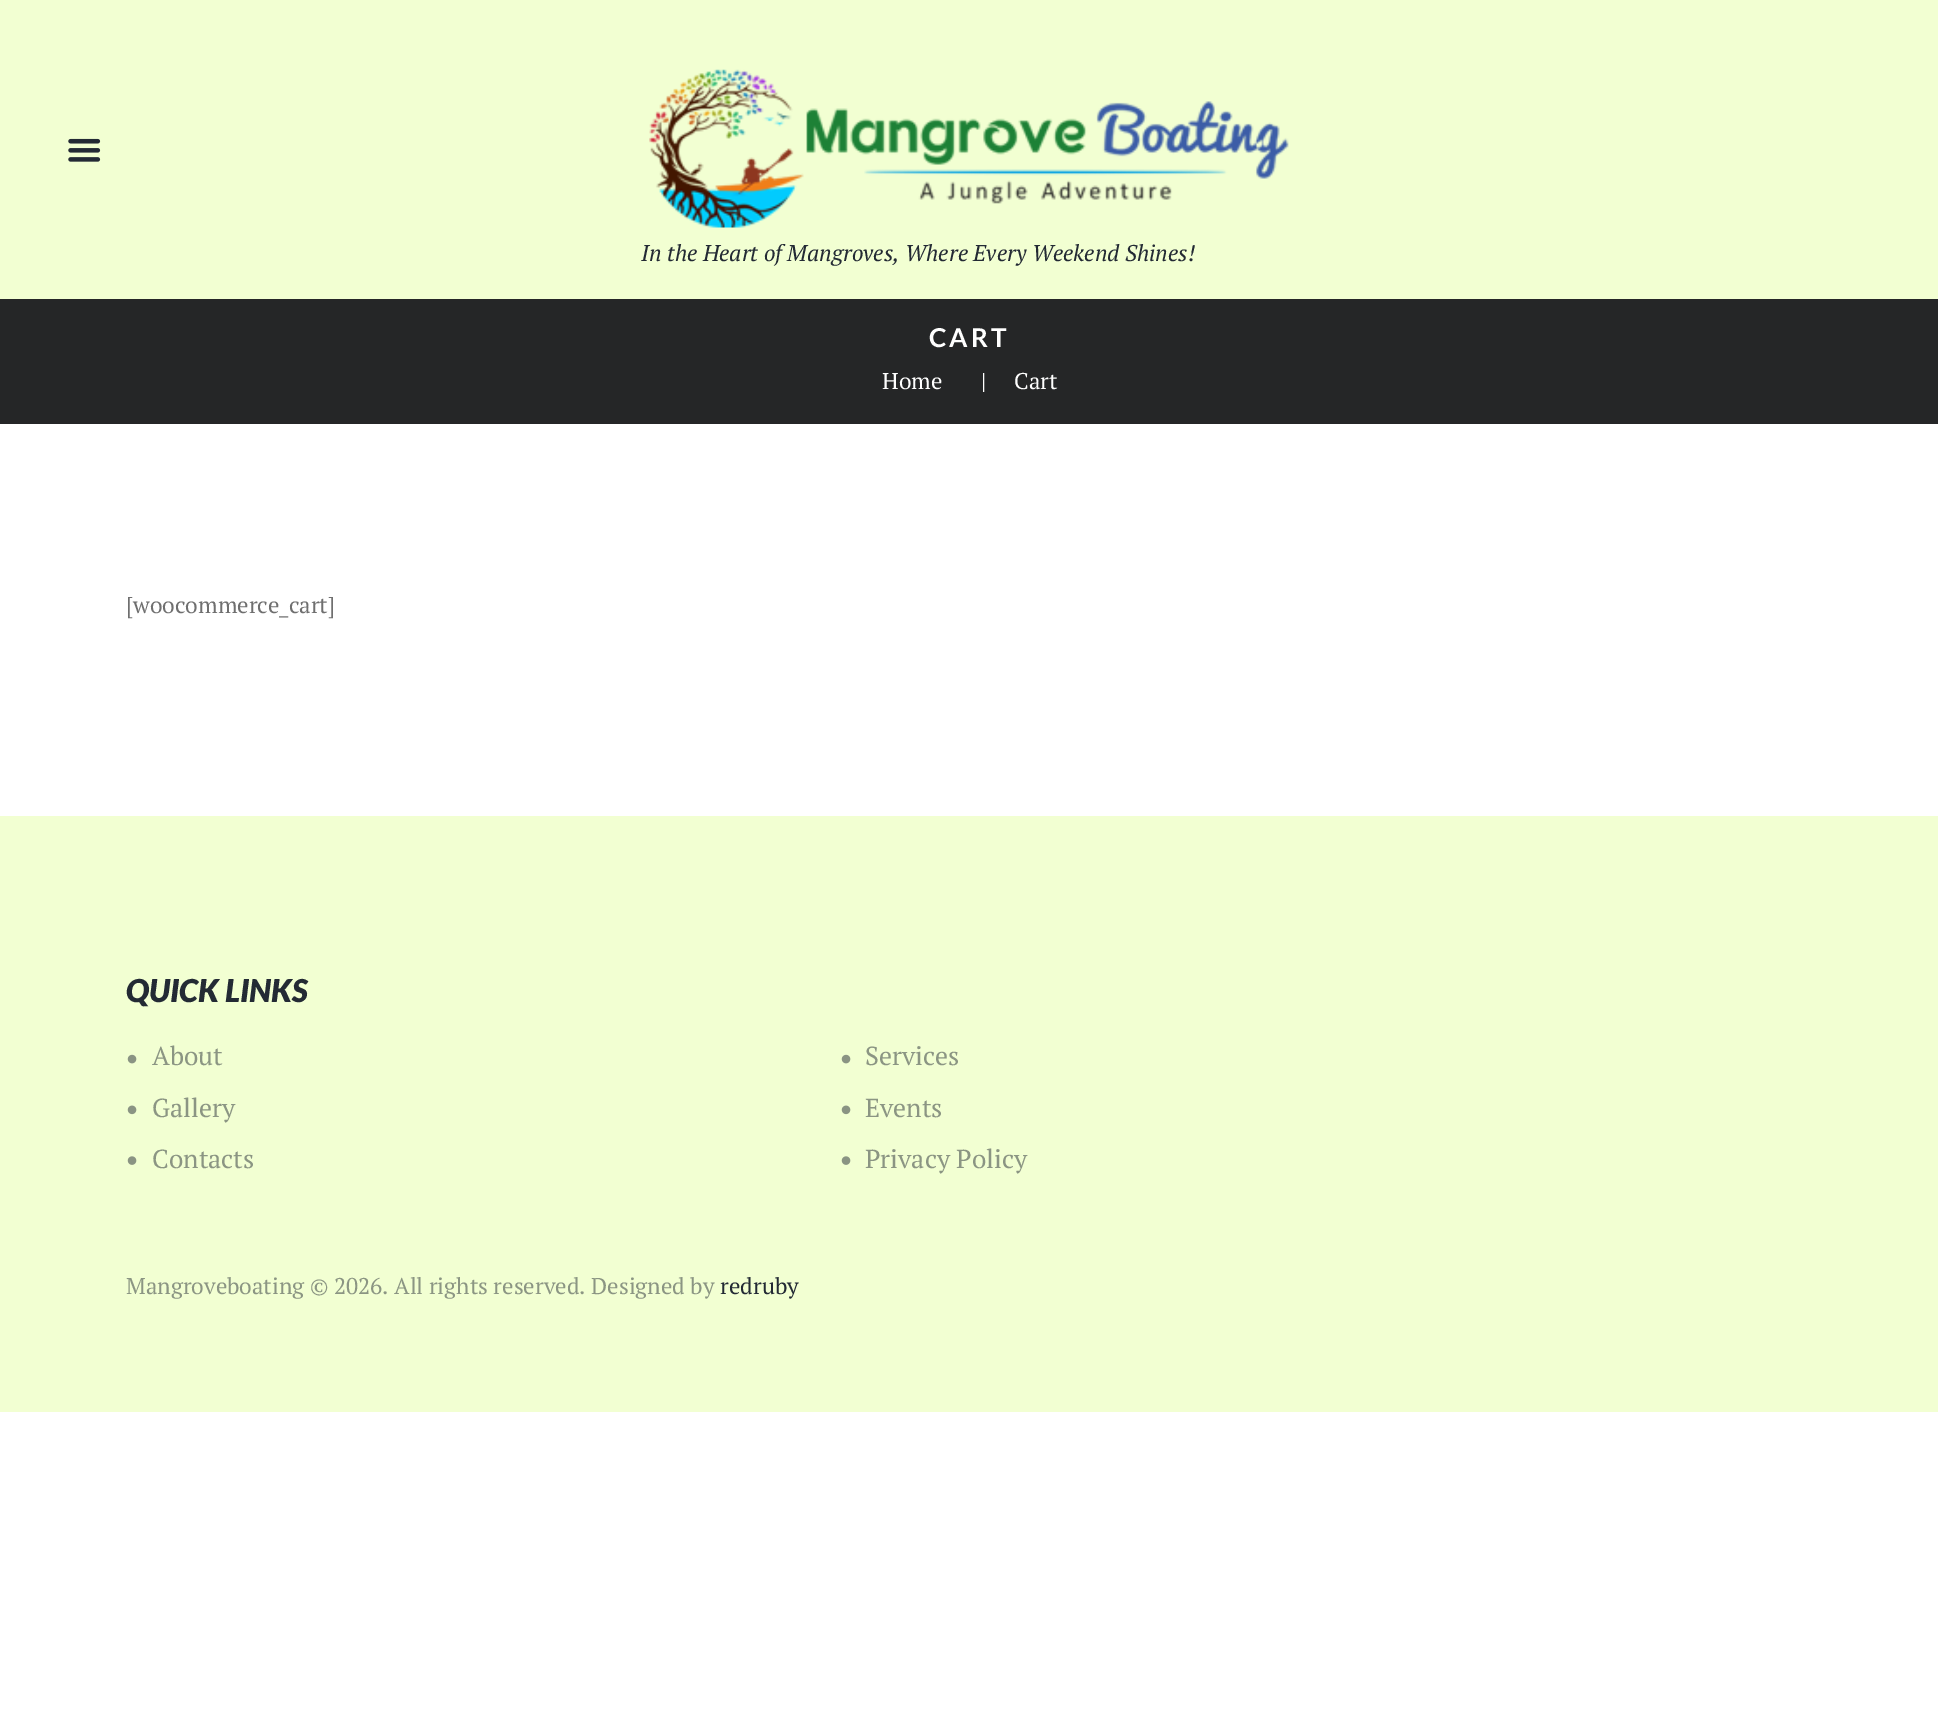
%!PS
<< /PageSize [1938 1734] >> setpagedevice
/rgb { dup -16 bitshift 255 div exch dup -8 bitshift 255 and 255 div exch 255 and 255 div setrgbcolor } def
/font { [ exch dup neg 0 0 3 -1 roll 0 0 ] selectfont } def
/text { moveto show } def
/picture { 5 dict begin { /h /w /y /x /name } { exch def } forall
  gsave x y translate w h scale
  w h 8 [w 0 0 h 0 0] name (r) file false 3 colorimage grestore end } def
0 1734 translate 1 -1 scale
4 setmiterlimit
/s1 { /PTSerif-Italic 22.75 font 16#232A34 rgb } def
/s2 { /PTSerif-Regular 22.75 font 16#FFFFFF rgb } def
/s3 { /PTSerif-Regular 22.75 font 16#6F6F6F rgb } def
/s4 { /Lato-BlackItalic 31.5 font 16#232A34 rgb } def
/s5 { /PTSerif-Regular 26 font 16#8B9583 rgb } def
/s6 { /PTSerif-Regular 22.75 font 16#8B9583 rgb } def
/s7 { /PTSerif-Regular 22.75 font 16#232A34 rgb } def
16#FFFFFF rgb
0 0 1938 1734 rectfill
16#F2FFD2 rgb
0 0 1938 299 rectfill
(pic1.raw) 68 138 33 24 picture
(pic2.raw) 649 69 640 159 picture
s1
(In the Heart of Mangroves, Where Every Weekend Shines!) 641 261 text
16#252627 rgb
0 299 1938 125 rectfill
/Lato-Bold 26 font
16#FFFFFF rgb
929 347 moveto 3 0 (CART) ashow
s2
(Home) 882 389 text
(|) 981 389 text
(Cart) 1014 389 text
s3
([woocommerce_cart]) 126 613 text
16#F2FFD2 rgb
0 816 1938 596 rectfill
s4
(QUICK LINKS) 126 1002 text
(pic3.raw) 127 1054 10 10 picture
s5
(About) 152 1065 text
(pic3.raw) 841 1054 10 10 picture
(Services) 865 1065 text
(pic4.raw) 127 1105 10 10 picture
(Gallery) 152 1117 text
(pic4.raw) 841 1105 10 10 picture
(Events) 865 1117 text
(pic5.raw) 127 1156 10 9 picture
(Contacts) 152 1168 text
(pic5.raw) 841 1156 10 9 picture
(Privacy Policy) 865 1168 text
s6
(Mangroveboating © 2026. All rights reserved. Designed by) 126 1294 text
s7
(redruby) 720 1294 text
showpage
